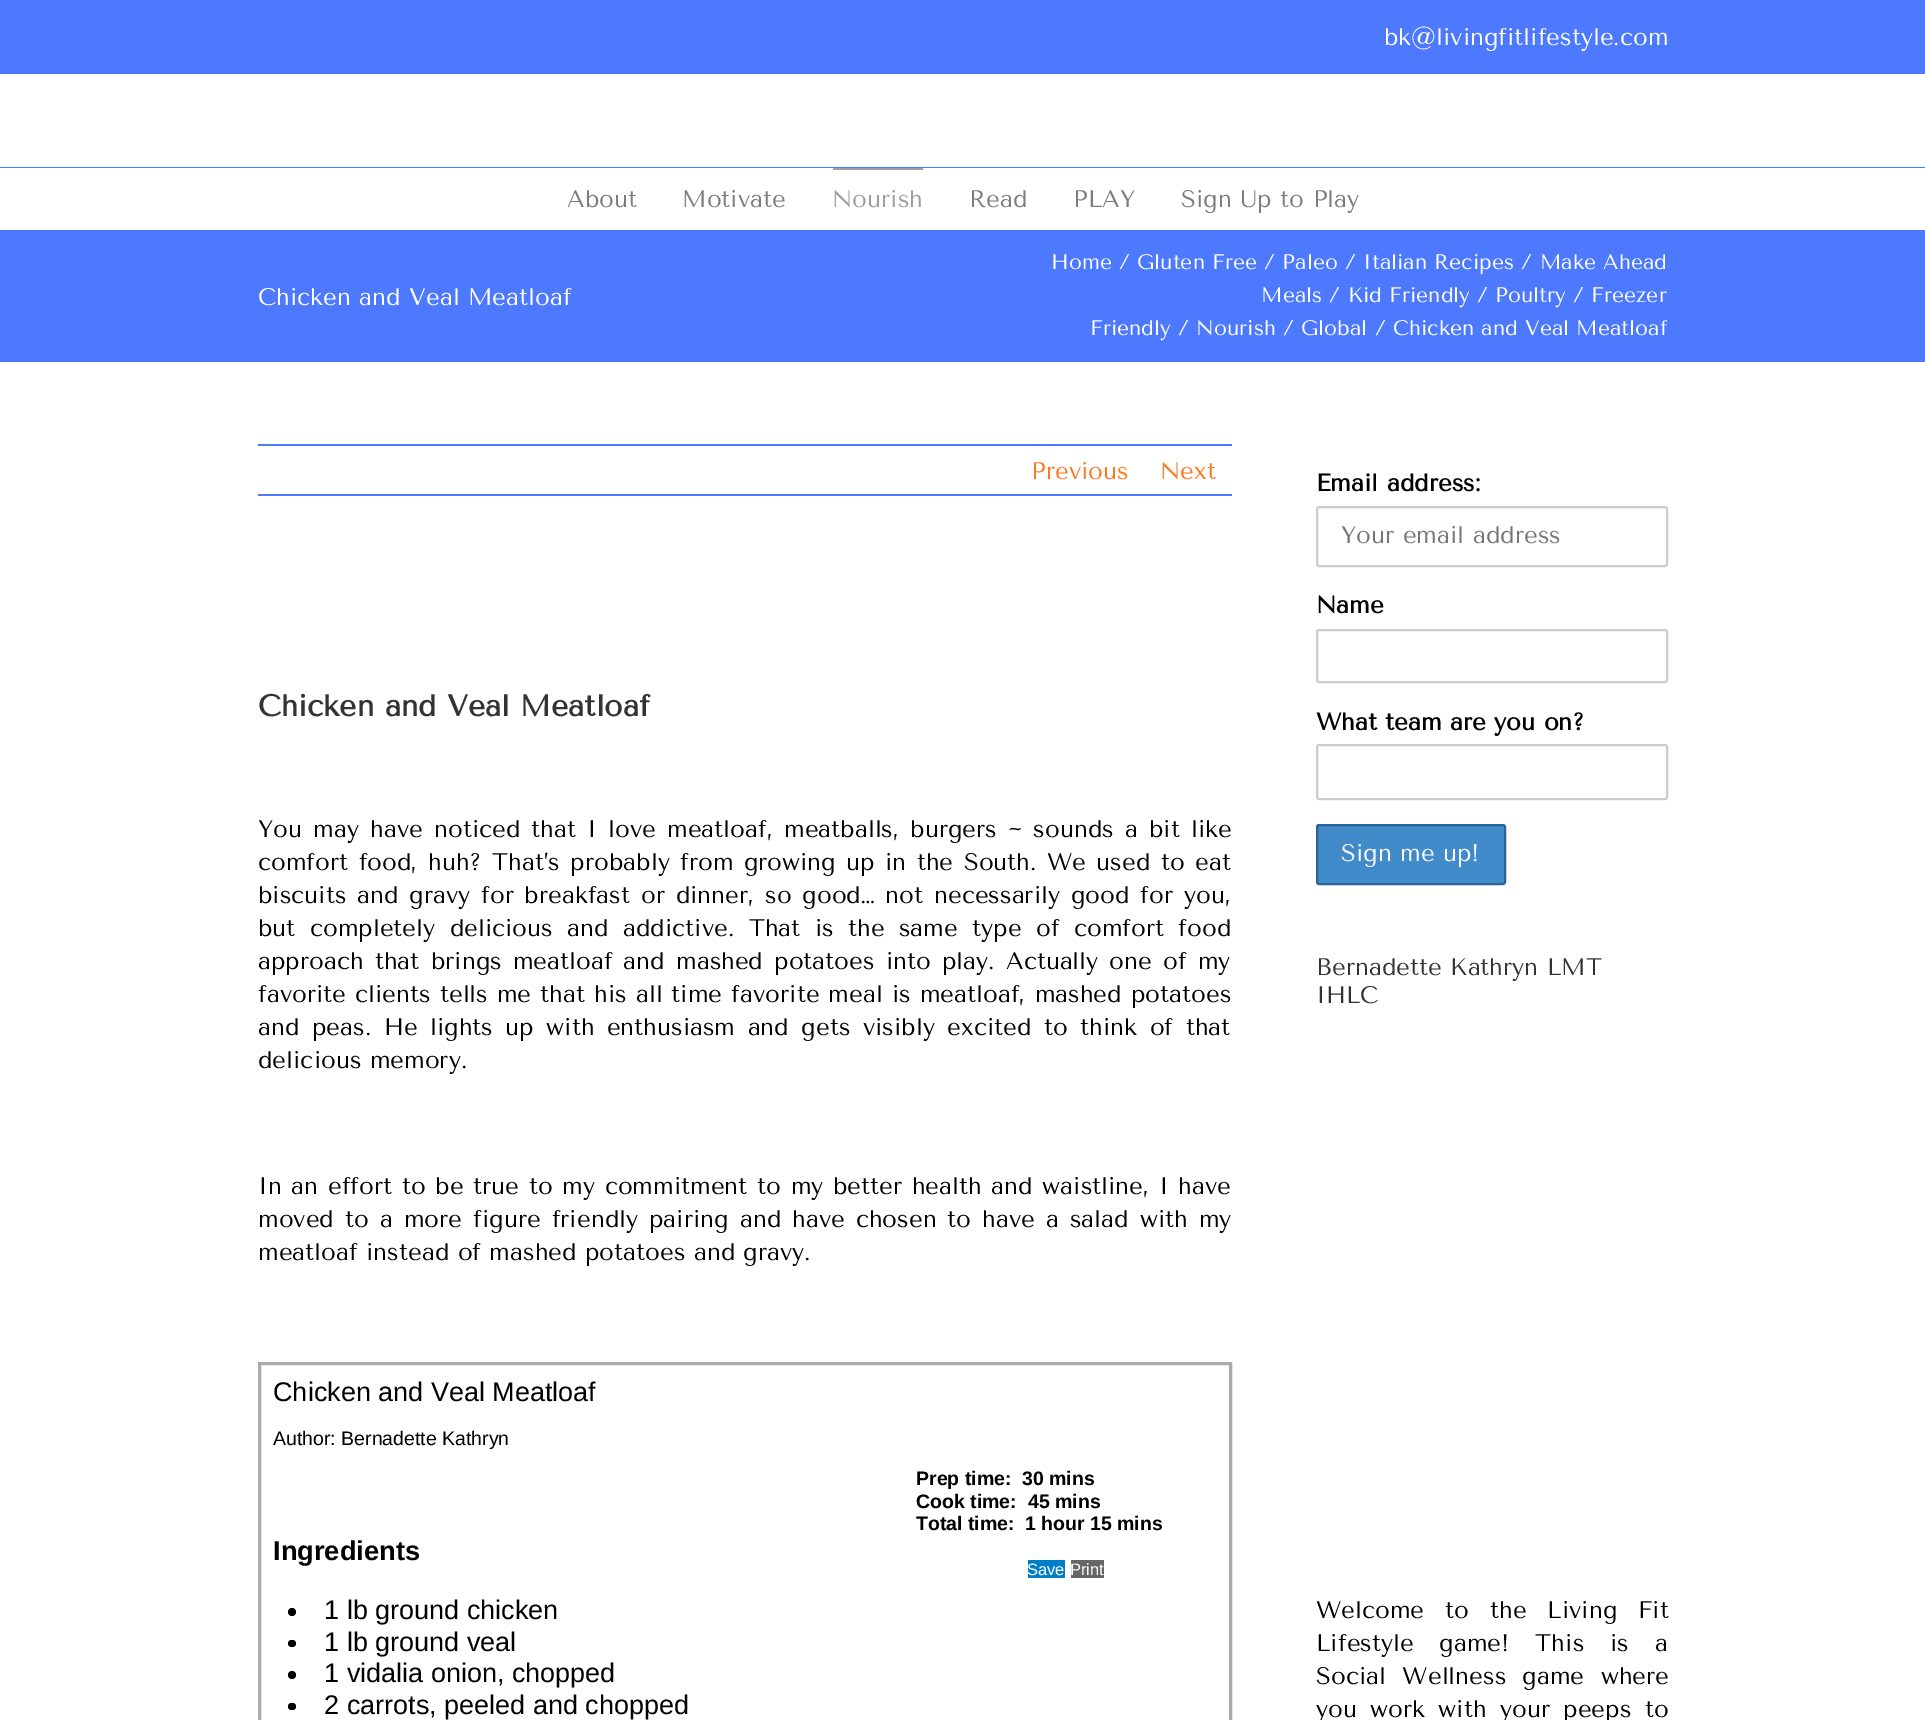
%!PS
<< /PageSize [1925 1720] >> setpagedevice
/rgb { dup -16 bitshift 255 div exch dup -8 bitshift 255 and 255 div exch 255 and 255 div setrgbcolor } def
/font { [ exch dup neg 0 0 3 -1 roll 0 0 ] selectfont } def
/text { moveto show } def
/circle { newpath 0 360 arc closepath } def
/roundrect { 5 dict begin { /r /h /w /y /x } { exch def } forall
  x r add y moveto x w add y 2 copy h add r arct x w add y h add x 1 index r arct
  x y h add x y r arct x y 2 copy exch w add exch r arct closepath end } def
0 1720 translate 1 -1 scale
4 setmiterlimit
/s1 { /TenorSans-Regular 24 font 16#FFFFFF rgb } def
/s2 { /TenorSans-Regular 24 font 16#7C7C7C rgb } def
/s3 { /TenorSans-Regular 24 font 16#9E9E9E rgb } def
/s4 { /TenorSans-Regular 21 font 16#FFFFFF rgb } def
/s5 { /TenorSans-Regular 24 font 16#FF781E rgb } def
/s6 { /TenorSans-Bold 30 font 16#333333 rgb } def
/s7 { /TenorSans-Regular 24 font 16#000000 rgb } def
/s8 { /LiberationSans-Regular 27 font 16#000000 rgb } def
/s9 { /LiberationSans-Regular 19.5 font 16#000000 rgb } def
/s10 { /LiberationSans-Bold 19.5 font 16#000000 rgb } def
/s11 { /LiberationSans-Regular 16.5 font 16#FFFFFF rgb } def
/s12 { /LiberationSans-Bold 27.25 font 16#000000 rgb } def
/s13 { /TenorSans-Bold 24 font 16#000000 rgb } def
/s14 { /TenorSans-Regular 24 font 16#757575 rgb } def
/s15 { /TenorSans-Regular 24 font 16#333333 rgb } def
16#FFFFFF rgb
0 0 1925 1720 rectfill
16#4D79FF rgb
0 0 1925 74 rectfill
s1
(bk@livingfitlifestyle.com) 1384 45 text
16#4D79FF rgb
0 167 1925 1 rectfill
s2
(About) 567 207 text
(Motivate) 682 207 text
16#9E9E9E rgb
833 168 90 2 rectfill
(Nourish) 832 207 text
s2
(Read) 969 207 text
(PLAY) 1073 207 text
(Sign Up to Play) 1181 207 text
16#4D79FF rgb
0 230 1925 132 rectfill
s1
(Chicken and Veal Meatloaf) 258 305 text
s4
(Home / Gluten Free / Paleo / Italian Recipes / Make Ahead) 1051 269 text
(Meals / Kid Friendly / Poultry / Freezer) 1261 302 text
(Friendly / Nourish / Global / Chicken and Veal Meatloaf) 1090 335 text
16#4D79FF rgb
258 444 974 2 rectfill
258 494 974 2 rectfill
s5
(Previous) 1031 479 text
(Next) 1160 479 text
s6
(Chicken and Veal Meatloaf) 258 716 text
/TenorSans-Regular 24 font
16#000000 rgb
258 837 moveto 2.75 0 32 (You may have noticed that I love meatloaf, meatballs, burgers ~ sounds a bit like) widthshow
258 870 moveto 2 0 32 (comfort food, huh? That’s probably from growing up in the South. We used to eat) widthshow
258 903 moveto 2.4 0 32 (biscuits and gravy for breakfast or dinner, so good… not necessarily good for you,) widthshow
258 936 moveto 6 0 32 (but completely delicious and addictive. That is the same type of comfort food) widthshow
258 969 moveto 2.75 0 32 (approach that brings meatloaf and mashed potatoes into play. Actually one of my) widthshow
258 1002 moveto 0.7 0 32 (favorite clients tells me that his all time favorite meal is meatloaf, mashed potatoes) widthshow
258 1035 moveto 4.1 0 32 (and peas. He lights up with enthusiasm and gets visibly excited to think of that) widthshow
(delicious memory.) 258 1068 text
258 1194 moveto 1.25 0 32 (In an effort to be true to my commitment to my better health and waistline, I have) widthshow
258 1227 moveto 2.6 0 32 (moved to a more figure friendly pairing and have chosen to have a salad with my) widthshow
(meatloaf instead of mashed potatoes and gravy.) 258 1260 text
16#AAAAAA rgb
3 setlinewidth
259.5 1363.5 971 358 rectstroke
s8
(Chicken and Veal Meatloaf) 273 1401 text
s9
(Author: Bernadette Kathryn) 273 1445 text
s10
(Prep time:) 916 1485 text
(30 mins) 1022 1485 text
(Cook time:) 916 1508 text
(45 mins) 1028 1508 text
(Total time:) 916 1530 text
(1 hour 15 mins) 1025 1530 text
16#007EC8 rgb
1028 1560 37 18 rectfill
s11
(Save) 1027 1575 text
16#666666 rgb
1071 1560 33 18 rectfill
s11
(Print) 1070 1575 text
s12
(Ingredients) 273 1560 text
292 1612 4 circle fill
s8
(1 lb ground chicken) 324 1619 text
288 1640 8 7 3.5 roundrect fill
(1 lb ground veal) 324 1651 text
292 1675 4 circle fill
(1 vidalia onion, chopped) 324 1682 text
288 1703 8 7 3.5 roundrect fill
(2 carrots, peeled and chopped) 324 1714 text
s13
(Email address:) 1316 491 text
16#CCCCCC rgb
2 setlinewidth
1317 507 350 59 2 roundrect stroke
s14
(Your email address) 1341 543 text
s13
(Name) 1316 613 text
16#CCCCCC rgb
1317 630 350 52 2 roundrect stroke
s13
(What team are you on?) 1316 730 text
16#CCCCCC rgb
1317 745 350 54 2 roundrect stroke
16#428BCA rgb
1317 825 188 59 2 roundrect gsave fill grestore
16#2A6496 rgb
stroke
s1
(Sign me up!) 1341 861 text
s15
(Bernadette Kathryn LMT) 1316 975 text
(IHLC) 1316 1003 text
16#000000 rgb
1316 1618 moveto 12.5 0 32 (Welcome to the Living Fit) widthshow
1316 1651 moveto 17.5 0 32 (Lifestyle game! This is a) widthshow
1316 1684 moveto 8 0 32 (Social Wellness game where) widthshow
1316 1717 moveto 5 0 32 (you work with your peeps to) widthshow
showpage
